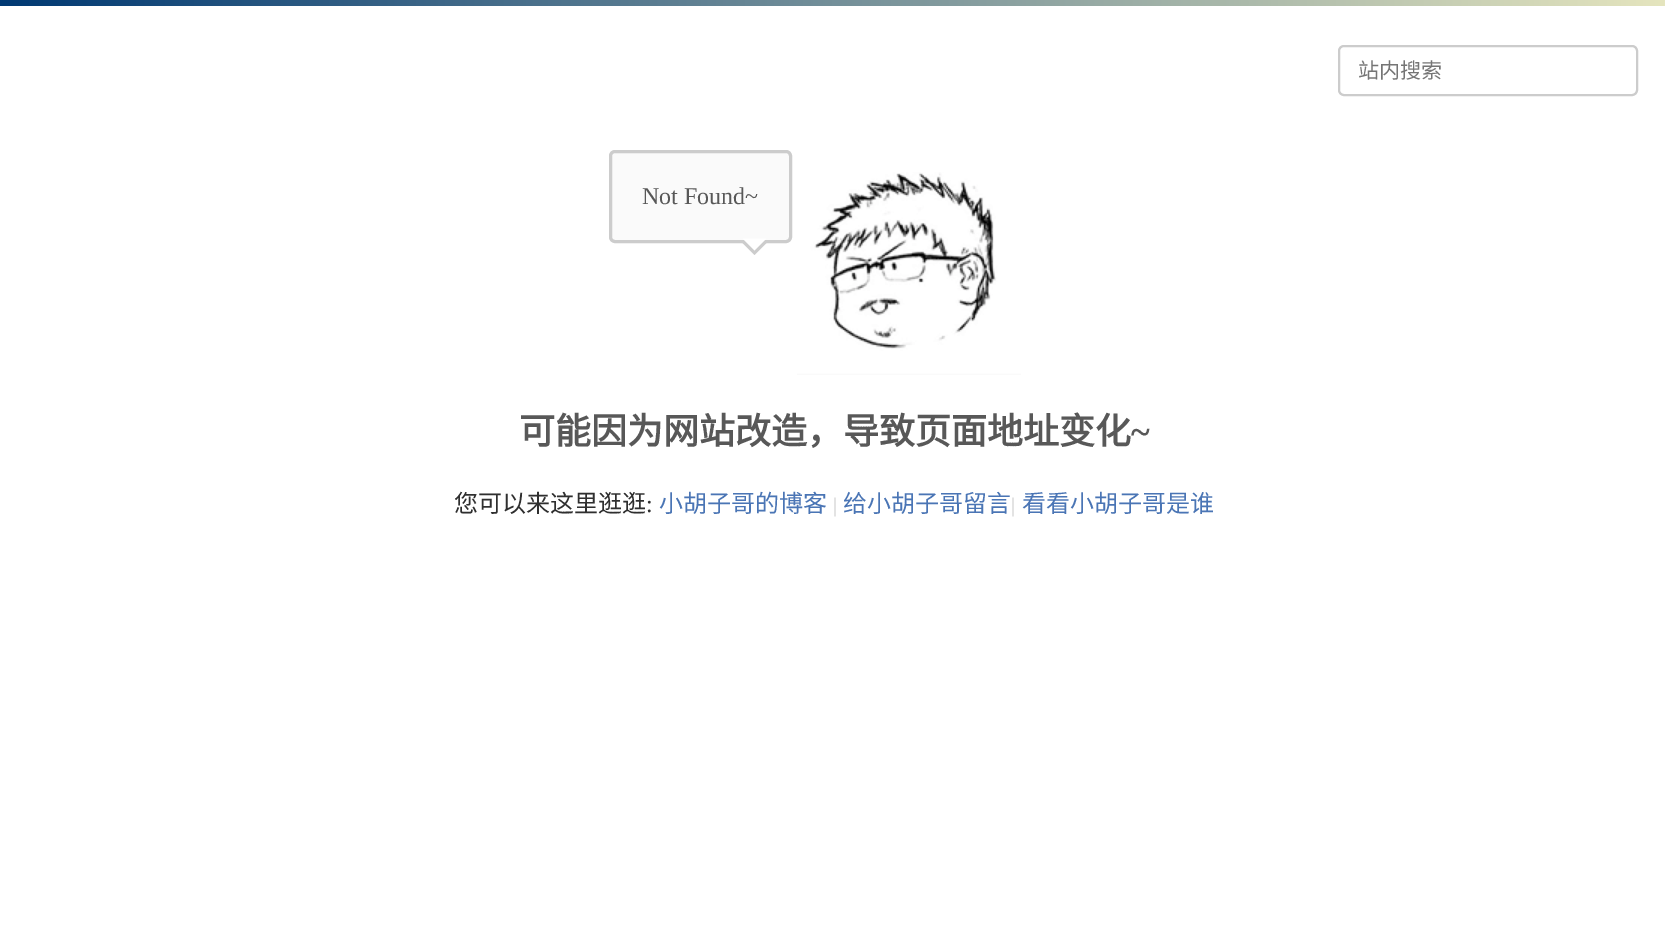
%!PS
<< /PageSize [1667 948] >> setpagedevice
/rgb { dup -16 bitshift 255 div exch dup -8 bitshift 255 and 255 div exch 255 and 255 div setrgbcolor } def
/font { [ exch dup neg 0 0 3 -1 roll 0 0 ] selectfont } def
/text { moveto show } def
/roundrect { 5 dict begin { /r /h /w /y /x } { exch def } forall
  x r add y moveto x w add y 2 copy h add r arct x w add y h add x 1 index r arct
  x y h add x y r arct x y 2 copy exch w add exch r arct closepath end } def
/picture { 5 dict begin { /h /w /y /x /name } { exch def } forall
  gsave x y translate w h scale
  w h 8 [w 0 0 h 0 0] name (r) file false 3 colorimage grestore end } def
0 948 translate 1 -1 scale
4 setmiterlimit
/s1 { /NotoSansCJKSC-Regular 21 font 16#757575 rgb } def
/s2 { /LiberationSerif-Regular 24 font 16#585858 rgb } def
/s3 { /NotoSansCJKSC-Bold 36 font 16#585858 rgb } def
/s4 { /LiberationSerif-Bold 36 font 16#585858 rgb } def
/s5 { /NotoSansCJKSC-Regular 24 font 16#2F2F2F rgb } def
/s6 { /LiberationSerif-Regular 24 font 16#2F2F2F rgb } def
/s7 { /NotoSansCJKSC-Regular 24 font 16#4A75B5 rgb } def
/s8 { /LiberationSerif-Regular 21 font 16#CCCCCC rgb } def
16#FFFFFF rgb
0 0 1667 948 rectfill
gsave 0 0 moveto 1665 0 lineto 1665 6 lineto 0 6 lineto closepath clip newpath
<< /ShadingType 2 /ColorSpace /DeviceRGB /Coords [-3 3 1665 3] /Extend [true true] /Function << /FunctionType 2 /Domain [0 1] /C0 [0 0.224 0.451] /C1 [0.898 0.898 0.745] /N 1 >> >> shfill grestore
16#CCCCCC rgb
2 setlinewidth
1339 46 298 49 5 roundrect stroke
s1
(站内搜索) 1358 78 text
16#FAFAFA rgb
610.5 151.5 180 90 4.5 roundrect gsave fill grestore
16#CCCCCC rgb
3 setlinewidth
stroke
s2
(Not Found~) 642 204 text
16#CCCCCC rgb
742.5 243 moveto 766.5 243 lineto 754.5 255 lineto closepath fill
16#FFFFFF rgb
742.5 238.5 moveto 766.5 238.5 lineto 754.5 250.5 lineto closepath fill
(pic1.raw) 797 172 224 203 picture
s3
(可能因为网站改造，导致页面地址变化) 519 444 text
s4
(~) 1131 444 text
s5
(您可以来这里逛逛) 454 512 text
s6
(:) 646 512 text
s7
(小胡子哥的博客) 659 512 text
s8
(|) 833 512 text
s7
(给小胡子哥留言) 843 512 text
s8
(|) 1011 512 text
s7
(看看小胡子哥是谁) 1022 512 text
showpage
